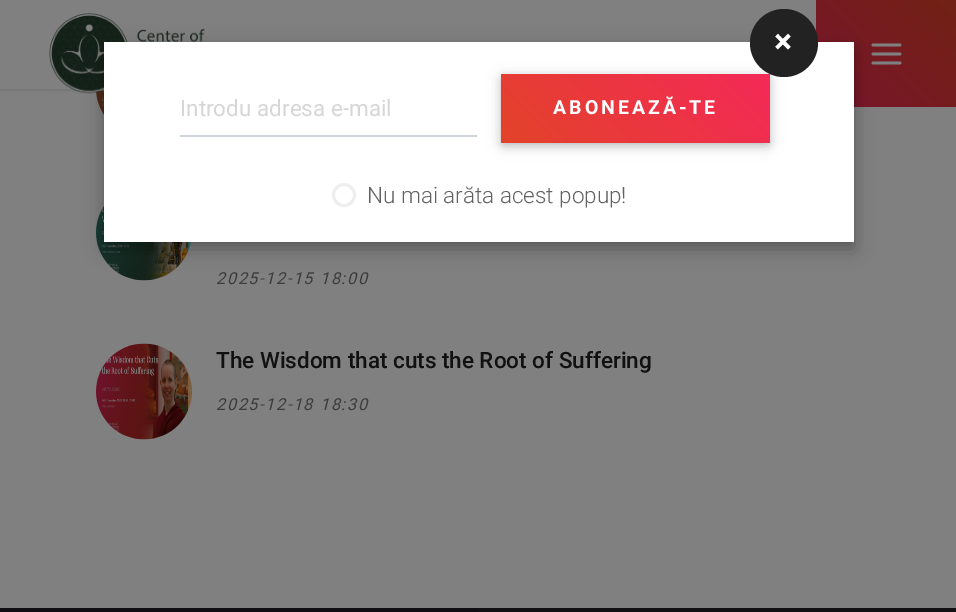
%!PS
<< /PageSize [956 612] /PageUsesTransparency true >> setpagedevice
/rgb { dup -16 bitshift 255 div exch dup -8 bitshift 255 and 255 div exch 255 and 255 div setrgbcolor } def
/font { [ exch dup neg 0 0 3 -1 roll 0 0 ] selectfont } def
/text { moveto show } def
/alpha { dup .setfillconstantalpha .setstrokeconstantalpha } def
/circle { newpath 0 360 arc closepath } def
/roundrect { 5 dict begin { /r /h /w /y /x } { exch def } forall
  x r add y moveto x w add y 2 copy h add r arct x w add y h add x 1 index r arct
  x y h add x y r arct x y 2 copy exch w add exch r arct closepath end } def
/shadow { 12 dict begin { /a /b /q /h /w /y /x } { exch def } forall gsave /was 0 def
  9 -2 -9 { dup b mul 4 div /e exch def 1 sub .425 mul 2.718 exch exp 1 add a .99 .min exch div /now exch def
    1 1 now sub 1 was sub div sub alpha /was now def
    w h .min e 2 mul add 0 gt { x e sub y e sub w e 2 mul add h e 2 mul add
      q e add b .6 mul add w h .min 2 div e add .min 0 .max roundrect fill } if } for grestore end } def
/picture { 5 dict begin { /h /w /y /x /name } { exch def } forall
  gsave x y translate w h scale
  w h 8 [w 0 0 h 0 0] name (r) file false 3 colorimage grestore end } def
0 .pushpdf14devicefilter
0 612 translate 1 -1 scale
4 setmiterlimit
/s1 { /Roboto-Bold 34 font 16#FFFFFF rgb } def
/s2 { /Roboto-Regular 22.5 font 16#D6D6D6 rgb } def
/s3 { /Roboto-Light 22.5 font 16#616161 rgb } def
/s4 { /Roboto-Medium 22.5 font 16#111111 rgb } def
16#808080 rgb
0 0 956 612 rectfill
16#777777 rgb
0 89 104 2 rectfill
(pic3.raw) 96 91 8 24 picture
(pic1.raw) 49 13 156 81 picture
gsave 816 0 moveto 956 0 lineto 956 107 lineto 816 107 lineto closepath clip newpath
<< /ShadingType 2 /ColorSpace /DeviceRGB /Coords [825 115 948 -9] /Extend [true true] /Function << /FunctionType 2 /Domain [0 1] /C0 [0.478 0.082 0.173] /C1 [0.447 0.133 0.082] /N 1 >> >> shfill grestore
(pic2.raw) 871 43 31 22 picture
(pic4.raw) 96 206 95 75 picture
16#000000 rgb
104 48 750 200 0 11 0.15 shadow
104 50 750 199 0 8 0.18 shadow
16#FFFFFF rgb
104 42 750 200 rectfill
16#000000 rgb
501 77 269 69 3 7.5 0.12 shadow
501 77 269 69 3 4 0.16 shadow
gsave 501 74 269 69 3 roundrect clip newpath
<< /ShadingType 2 /ColorSpace /DeviceRGB /Coords [720 24 551 192] /Extend [true true] /Function << /FunctionType 2 /Domain [0 1] /C0 [0.957 0.161 0.345] /C1 [0.89 0.263 0.165] /N 1 >> >> shfill grestore
16#222222 rgb
784 43 34 circle fill
s1
(×) 774 53 text
16#CED4DA rgb
180 135 297 2 rectfill
s2
(Introdu adresa e-mail) 180 116 text
/Roboto-Bold 19.5 font
16#FFFFFF rgb
553 114 moveto 3 0 (ABONEAZĂ-TE) ashow
16#EEEEEE rgb
3 setlinewidth
344 195 10.5 circle stroke
s3
(Nu mai arăta acest popup!) 367 203 text
16#110E13 rgb
0 608 479 4 rectfill
16#131014 rgb
479 608 477 4 rectfill
/Roboto-Italic 16.5 font
16#3C3C3C rgb
216 284 moveto 1.5 0 (2025-12-15 18:00) ashow
(pic5.raw) 96 343 96 97 picture
s4
(The Wisdom that cuts the Root of Suffering) 216 368 text
/Roboto-Italic 16.5 font
16#3C3C3C rgb
216 410 moveto 1.5 0 (2025-12-18 18:30) ashow
.poppdf14devicefilter showpage
